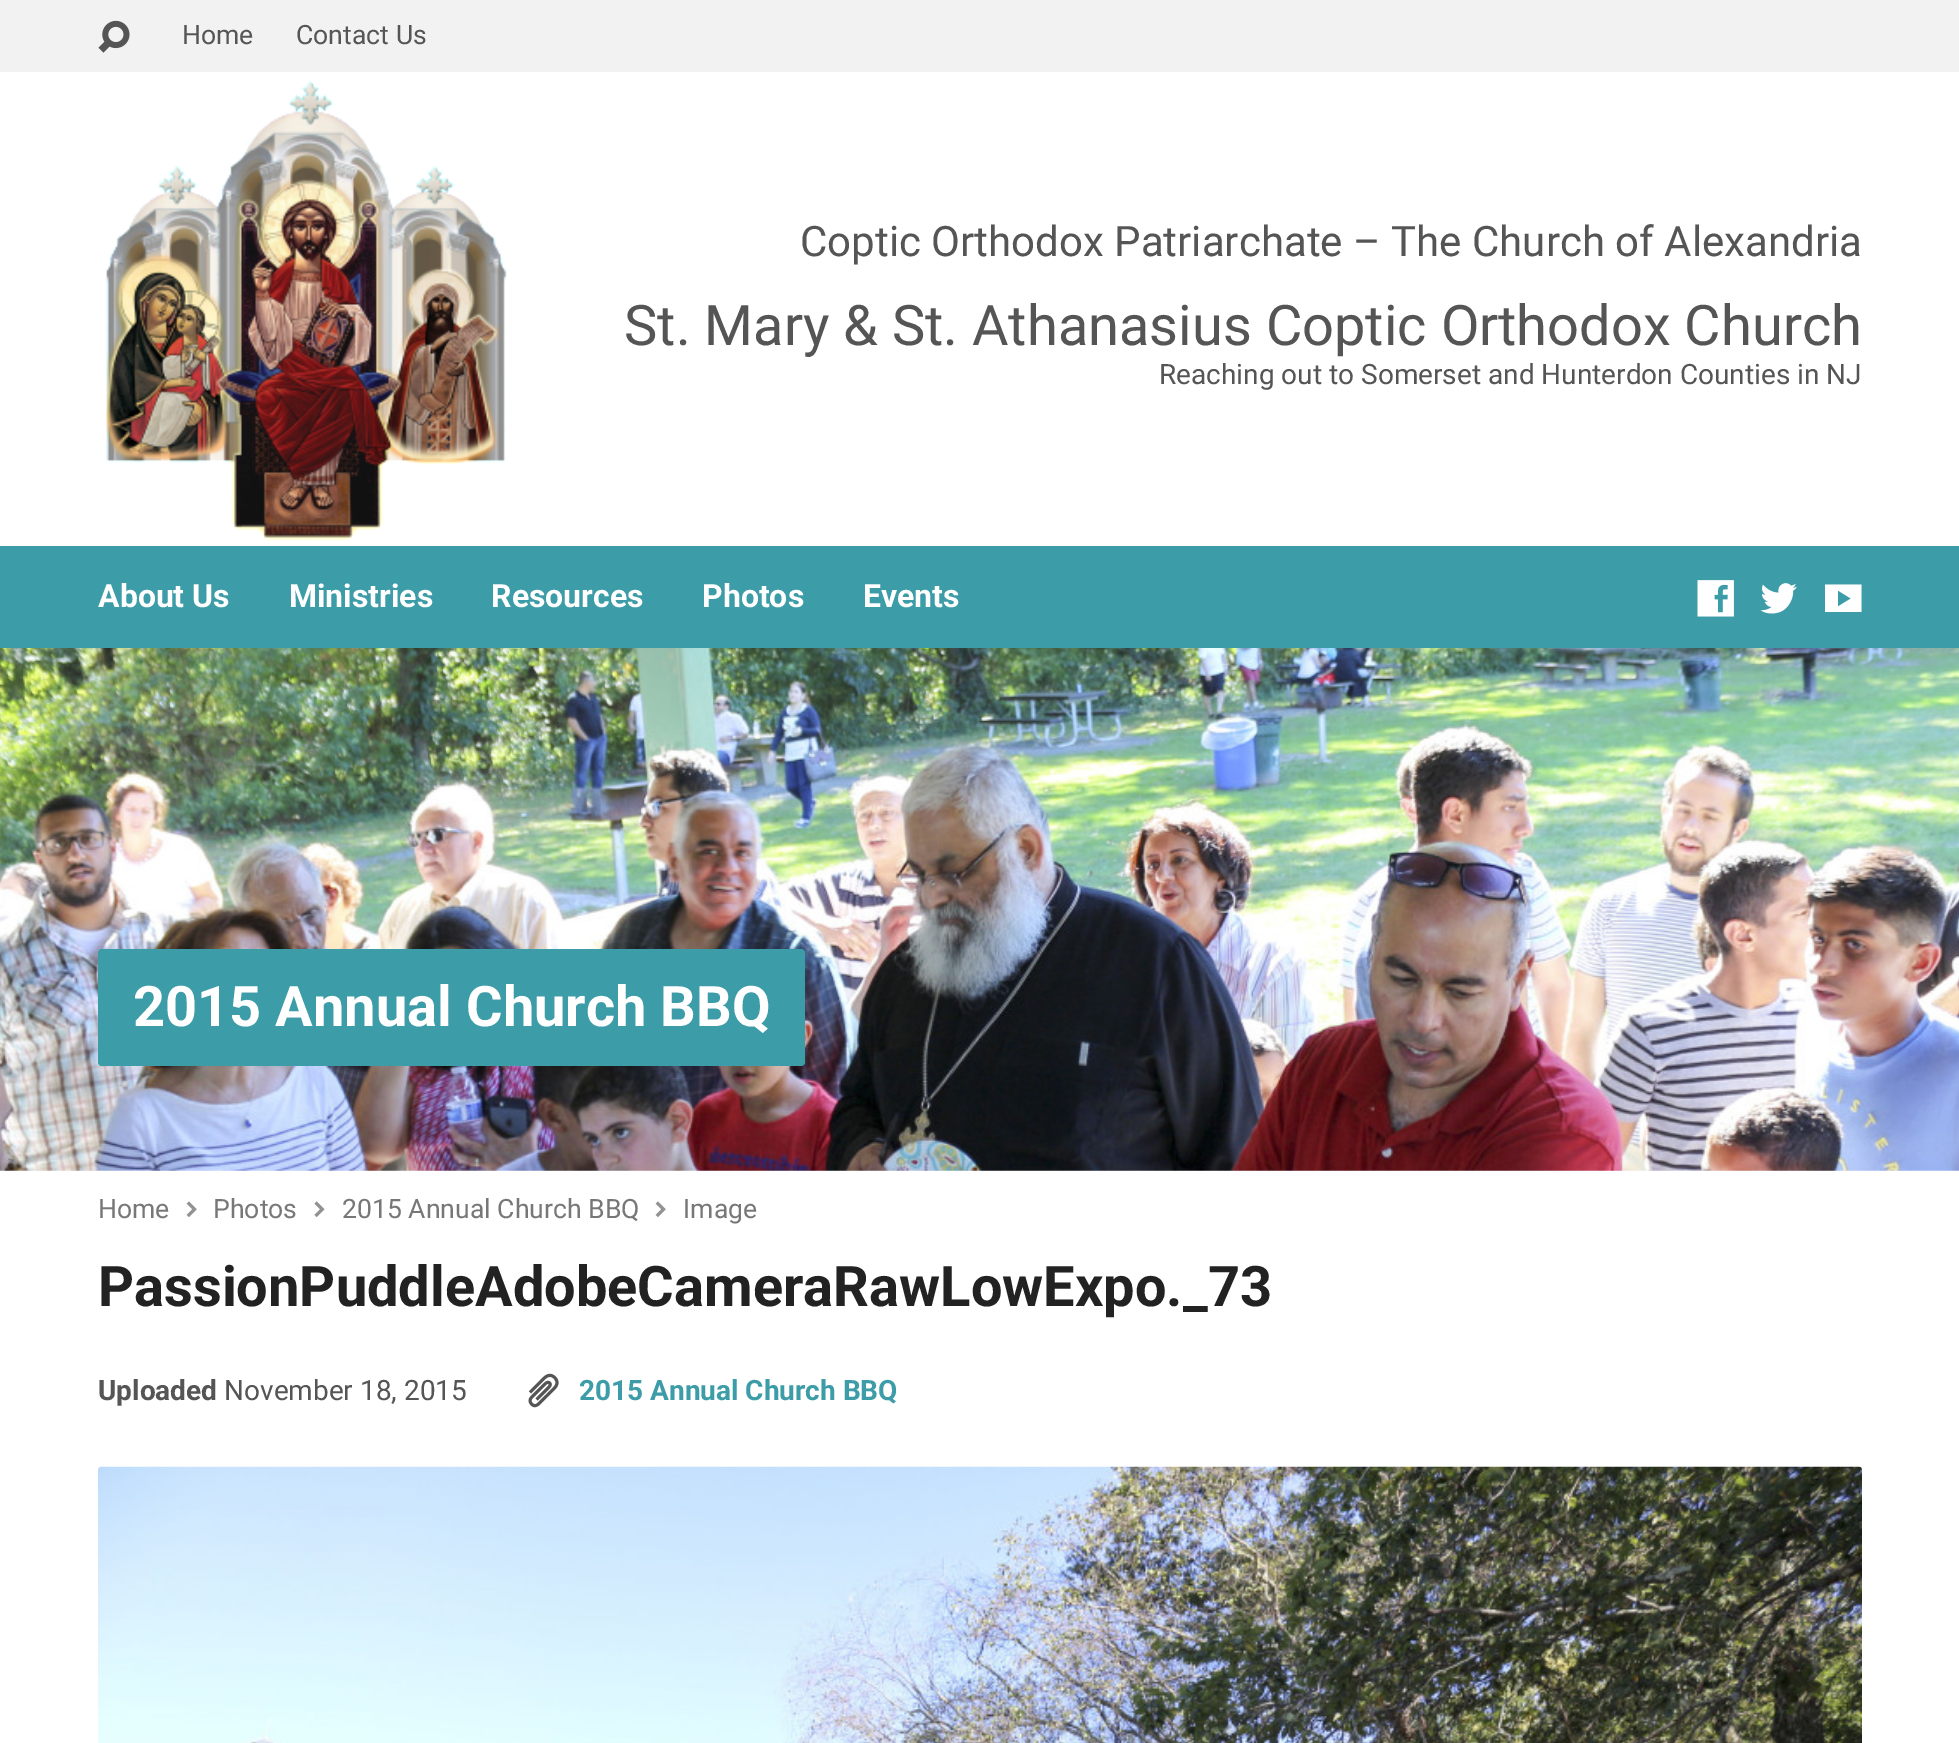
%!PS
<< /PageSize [1959 1743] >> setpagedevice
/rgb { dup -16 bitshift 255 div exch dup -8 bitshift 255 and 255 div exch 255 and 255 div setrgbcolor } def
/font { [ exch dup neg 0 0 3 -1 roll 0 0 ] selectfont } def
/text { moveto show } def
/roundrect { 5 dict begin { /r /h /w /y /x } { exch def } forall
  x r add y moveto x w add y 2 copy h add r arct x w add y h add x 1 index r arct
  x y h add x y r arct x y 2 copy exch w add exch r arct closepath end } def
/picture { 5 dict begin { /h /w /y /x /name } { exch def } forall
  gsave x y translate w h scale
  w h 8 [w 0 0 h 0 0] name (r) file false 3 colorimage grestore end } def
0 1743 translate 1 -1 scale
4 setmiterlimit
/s1 { /Roboto-Regular 26.6 font 16#555555 rgb } def
/s2 { /Roboto-Regular 42 font 16#555555 rgb } def
/s3 { /Roboto-Regular 56 font 16#555555 rgb } def
/s4 { /Roboto-Regular 28 font 16#555555 rgb } def
/s5 { /Roboto-Bold 32 font 16#FFFFFF rgb } def
/s6 { /Roboto-Bold 56 font 16#FFFFFF rgb } def
/s7 { /Roboto-Regular 26.6 font 16#777777 rgb } def
/s8 { /Roboto-Bold 56 font 16#222222 rgb } def
/s9 { /Roboto-Bold 28 font 16#555555 rgb } def
/s10 { /Roboto-Bold 28 font 16#3C9CA7 rgb } def
16#FFFFFF rgb
0 0 1959 1743 rectfill
16#F2F2F2 rgb
0 0 1959 72 rectfill
(pic1.raw) 98 20 32 33 picture
s1
(Home) 182 44 text
(Contact Us) 296 44 text
(pic2.raw) 105 80 402 461 picture
s2
(Coptic Orthodox Patriarchate – The Church of Alexandria) 800 256 text
s3
(St. Mary & St. Athanasius Coptic Orthodox Church) 624 345 text
s4
(Reaching out to Somerset and Hunterdon Counties in NJ) 1159 384 text
16#3C9CA7 rgb
0 546 1959 102 rectfill
s5
(About Us) 98 607 text
(Ministries) 289 607 text
(Resources) 491 607 text
(Photos) 702 607 text
(Events) 863 607 text
(pic3.raw) 1697 580 37 37 picture
(pic4.raw) 1760 583 37 31 picture
1861.5 612 moveto 1825 612 lineto 1825 584.5 lineto 1861.5 584.5 lineto closepath 1838 606.5 moveto 1851 598.5 lineto 1838 590.5 lineto closepath fill
(pic5.raw) 0 648 1959 523 picture
16#3C9CA7 rgb
98 949 707 117 4 roundrect fill
s6
(2015 Annual Church BBQ) 133 1026 text
s7
(Home) 98 1218 text
(pic6.raw) 186 1201 11 17 picture
(Photos) 213 1218 text
(pic7.raw) 314 1201 11 17 picture
(2015 Annual Church BBQ) 342 1218 text
(pic6.raw) 655 1201 11 17 picture
(Image) 683 1218 text
s8
(PassionPuddleAdobeCameraRawLowExpo._73) 98 1306 text
s9
(Uploaded) 98 1400 text
s4
(November 18, 2015) 224 1400 text
(pic8.raw) 528 1373 31 35 picture
s10
(2015 Annual Church BBQ) 579 1400 text
(pic9.raw) 98 1466 1764 277 picture
showpage
